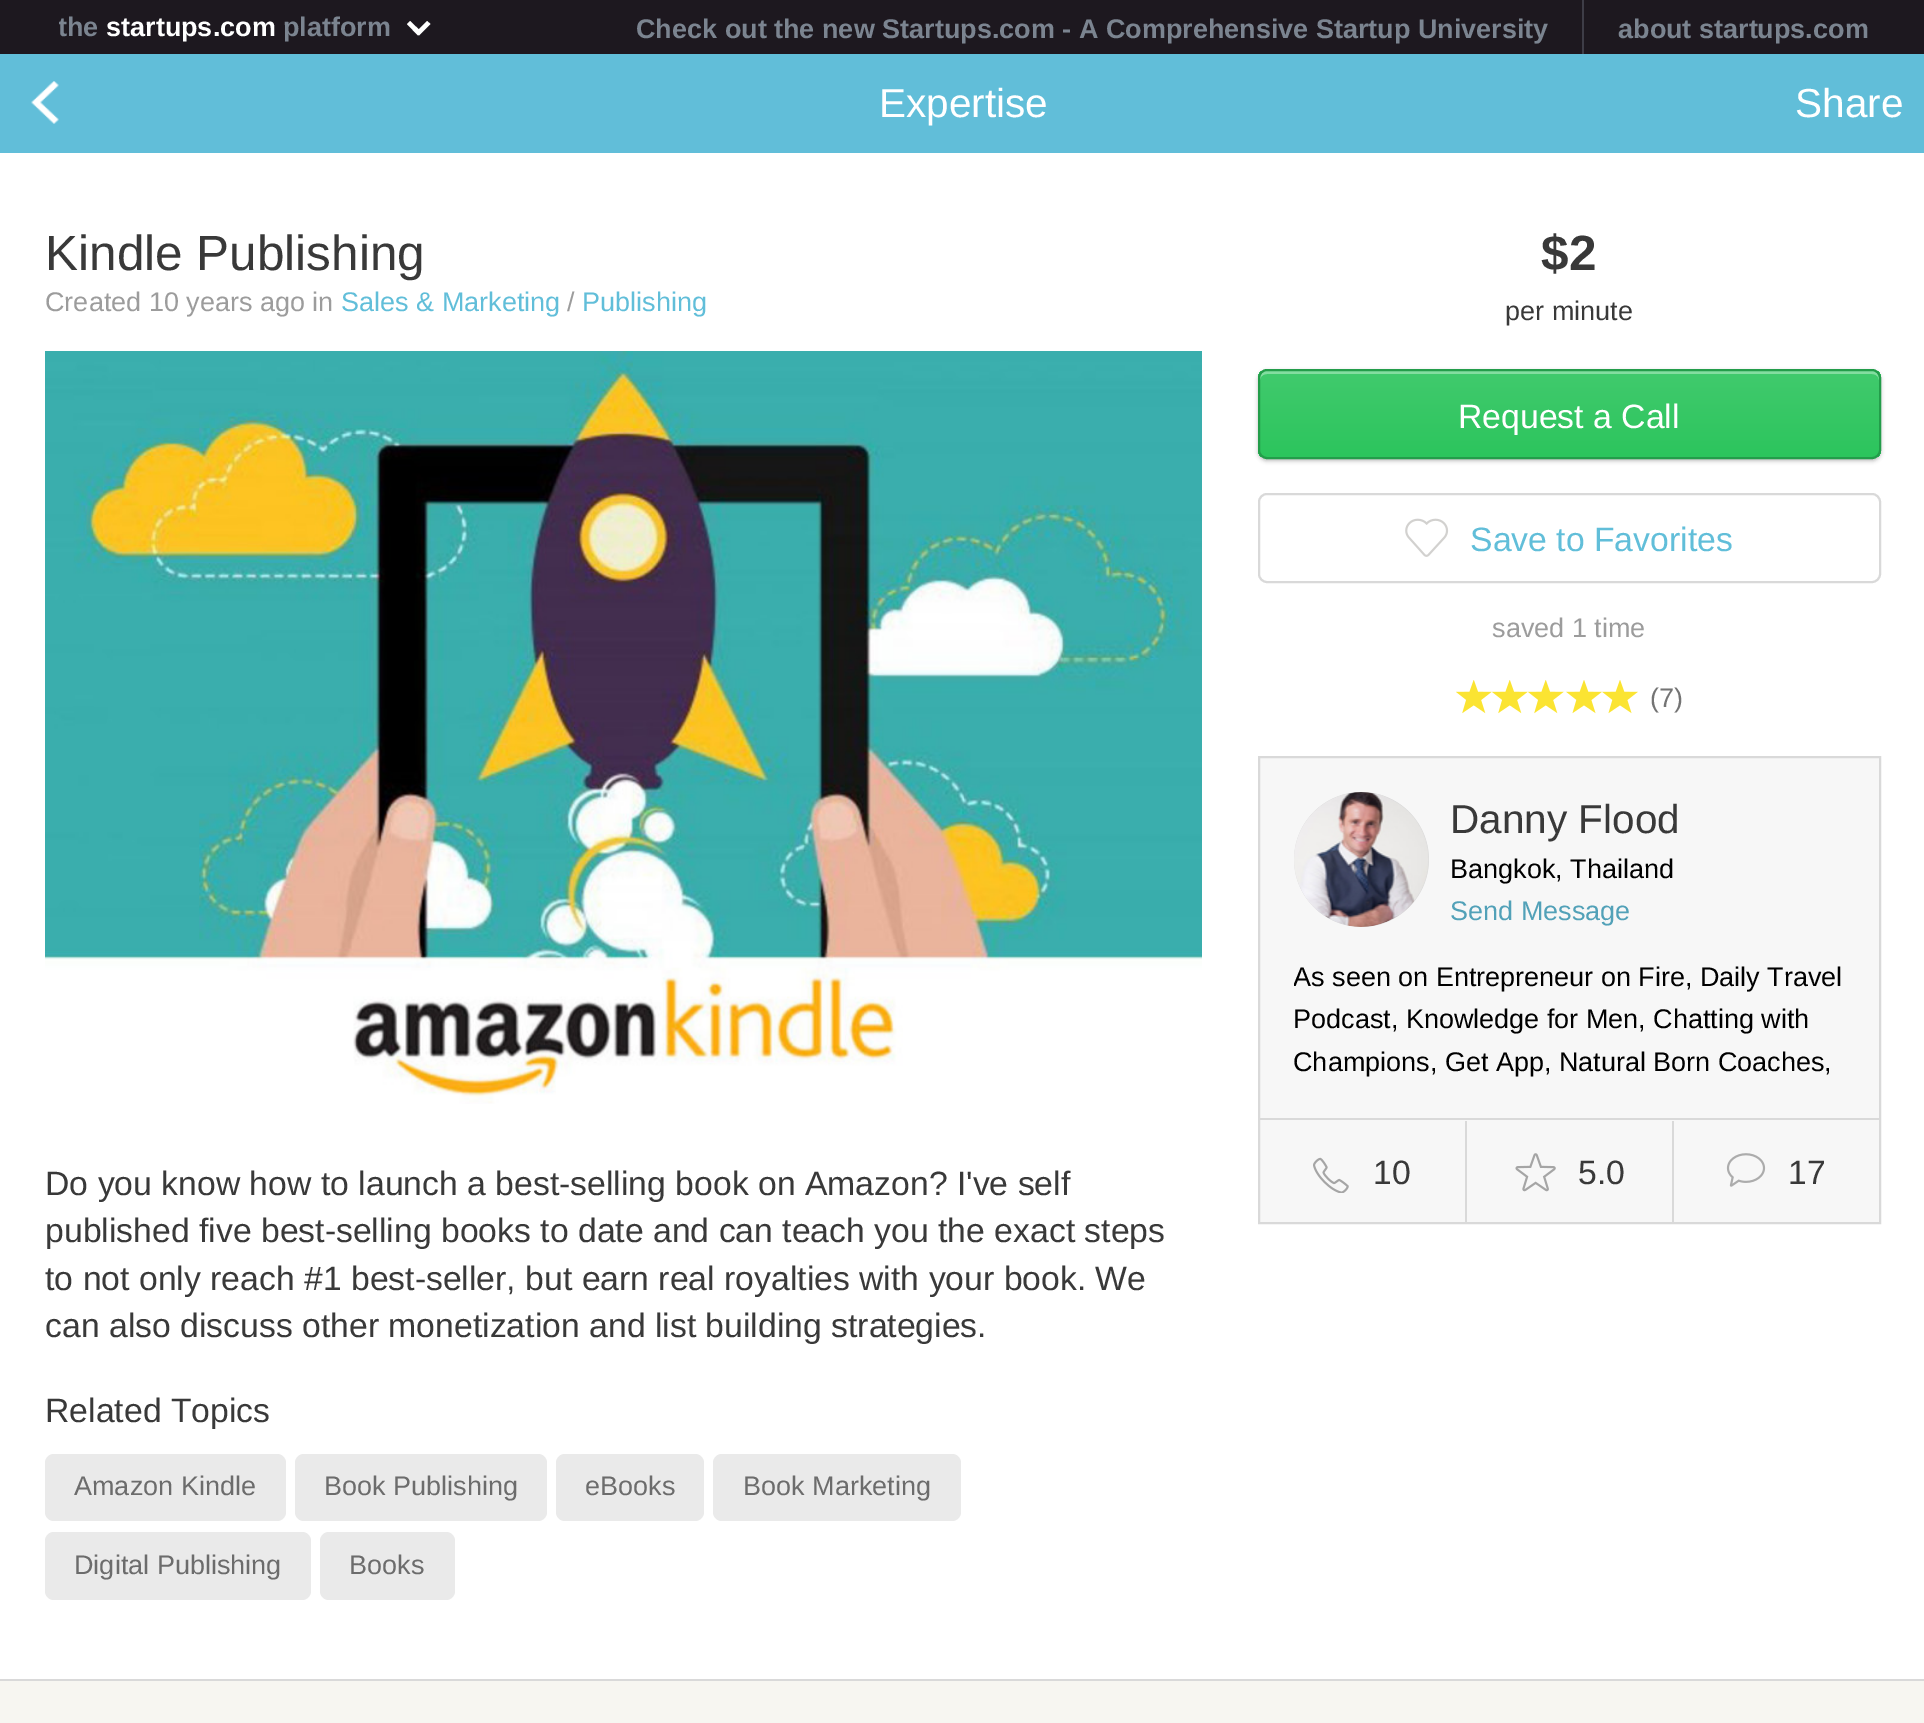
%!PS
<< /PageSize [1924 1723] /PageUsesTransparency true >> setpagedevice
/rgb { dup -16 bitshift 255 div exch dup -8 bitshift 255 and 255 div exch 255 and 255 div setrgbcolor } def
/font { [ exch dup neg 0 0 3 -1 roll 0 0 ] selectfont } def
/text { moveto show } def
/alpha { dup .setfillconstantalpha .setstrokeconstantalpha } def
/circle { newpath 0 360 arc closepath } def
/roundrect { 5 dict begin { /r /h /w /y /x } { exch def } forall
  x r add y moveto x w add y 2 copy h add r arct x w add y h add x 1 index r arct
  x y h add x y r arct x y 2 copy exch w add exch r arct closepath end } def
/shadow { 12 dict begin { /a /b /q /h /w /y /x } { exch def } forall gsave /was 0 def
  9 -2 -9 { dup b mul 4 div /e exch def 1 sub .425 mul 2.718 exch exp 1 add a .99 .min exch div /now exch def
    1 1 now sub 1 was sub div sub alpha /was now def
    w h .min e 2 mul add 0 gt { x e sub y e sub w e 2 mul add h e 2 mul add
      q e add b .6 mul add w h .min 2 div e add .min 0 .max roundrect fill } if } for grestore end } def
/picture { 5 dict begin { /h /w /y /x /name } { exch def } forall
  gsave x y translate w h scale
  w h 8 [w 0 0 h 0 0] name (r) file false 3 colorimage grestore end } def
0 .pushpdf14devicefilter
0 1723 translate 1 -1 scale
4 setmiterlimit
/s1 { /LiberationSans-Bold 27 font 16#7B8490 rgb } def
/s2 { /LiberationSans-Bold 27 font 16#FFFFFF rgb } def
/s3 { /LiberationSans-Regular 40.5 font 16#FFFFFF rgb } def
/s4 { /LiberationSans-Regular 49.5 font 16#393939 rgb } def
/s5 { /LiberationSans-Regular 27 font 16#9C9C9C rgb } def
/s6 { /LiberationSans-Regular 27 font 16#61BED9 rgb } def
/s7 { /LiberationSans-Regular 33.75 font 16#393939 rgb } def
/s8 { /LiberationSans-Regular 27 font 16#6C6C6C rgb } def
/s9 { /LiberationSans-Bold 49.5 font 16#393939 rgb } def
/s10 { /LiberationSans-Regular 27 font 16#393939 rgb } def
/s11 { /LiberationSans-Regular 33.75 font 16#FFFFFF rgb } def
/s12 { /LiberationSans-Regular 33.75 font 16#61BED9 rgb } def
/s13 { /LiberationSans-Regular 27 font 16#747474 rgb } def
/s14 { /LiberationSans-Regular 40.5 font 16#393939 rgb } def
/s15 { /LiberationSans-Regular 27 font 16#000000 rgb } def
/s16 { /LiberationSans-Regular 27 font 16#52A1B8 rgb } def
16#1D181F rgb
0 0 1924 1723 rectfill
gsave
59 0 1809 54 rectclip
s1
(the) 58 36 text
grestore
s2
(startups.com) 106 36 text
s1
(platform) 283 36 text
16#FFFFFF rgb
421.5 32 moveto 418 35.5 lineto 407 24 lineto 410 21 lineto closepath fill
419 35.5 moveto 416 32 lineto 427 21 lineto 430.5 24 lineto closepath fill
16#3E3D47 rgb
1582 0 2 54 rectfill
s1
(Check out the new Startups.com - A Comprehensive Startup University) 636 38 text
(about startups.com) 1618 38 text
16#61BED9 rgb
0 54 1924 99 rectfill
(pic1.raw) 31 81 28 43 picture
s3
(Expertise) 879 117 text
(Share) 1795 117 text
16#F7F6F1 rgb
0 1681 1924 42 rectfill
16#FFFFFF rgb
0 153 1924 1526 rectfill
s4
(Kindle Publishing) 45 270 text
s5
(Created 10 years ago in) 45 311 text
s6
(Sales & Marketing) 341 311 text
s5
(/) 567 311 text
s6
(Publishing) 582 311 text
(pic2.raw) 45 351 1157 753 picture
s7
(Do you know how to launch a best-selling book on Amazon? I've self) 45 1195 text
(published five best-selling books to date and can teach you the exact steps) 45 1242 text
(to not only reach #1 best-seller, but earn real royalties with your book. We) 45 1290 text
(can also discuss other monetization and list building strategies.) 45 1337 text
(Related Topics) 45 1422 text
16#EAEAEA rgb
45 1454 241 67 9 roundrect fill
s8
(Amazon Kindle) 74 1495 text
16#EAEAEA rgb
295 1454 252 67 9 roundrect fill
s8
(Book Publishing) 324 1495 text
16#EAEAEA rgb
556 1454 148 67 9 roundrect fill
s8
(eBooks) 585 1495 text
16#EAEAEA rgb
713 1454 248 67 9 roundrect fill
s8
(Book Marketing) 743 1495 text
16#EAEAEA rgb
45 1532 266 68 9 roundrect fill
s8
(Digital Publishing) 74 1574 text
16#EAEAEA rgb
320 1532 135 68 9 roundrect fill
s8
(Books) 349 1574 text
s9
($2) 1541 270 text
s10
(per minute) 1505 320 text
16#000000 rgb
1258 371 623 90 9 2 0.25 shadow
gsave
1258 369 623 90 9 roundrect clip newpath
gsave 1258 371 moveto 1881 371 lineto 1881 457 lineto 1258 457 lineto closepath clip newpath
<< /ShadingType 2 /ColorSpace /DeviceRGB /Coords [1569 371 1569 457] /Extend [true true] /Function << /FunctionType 2 /Domain [0 1] /C0 [0.255 0.792 0.427] /C1 [0.173 0.773 0.365] /N 1 >> >> shfill grestore
grestore
16#83DDA0 rgb
1267 374 moveto 1872 374 lineto 1876 374 1879 377 1879 380 curveto 1879 376 1877 371 1872 371 curveto 1267 371 lineto 1262 371 1260 376 1260 380 curveto 1260 377 1263 374 1267 374 curveto closepath fill
16#239D4A rgb
2 setlinewidth
1259 370 621 88 8 roundrect stroke
s11
(Request a Call) 1458 428 text
16#D9D9D9 rgb
1259 494 621 88 8 roundrect stroke
(pic3.raw) 1405 518 44 39 picture
s12
(Save to Favorites) 1470 551 text
s5
(saved 1 time) 1492 637 text
(pic4.raw) 1456 680 36 34 picture
(pic4.raw) 1492 680 36 34 picture
(pic4.raw) 1528 680 36 34 picture
(pic5.raw) 1566 680 36 34 picture
(pic5.raw) 1602 680 36 34 picture
s13
(\(7\)) 1650 707 text
16#F7F7F7 rgb
1259 757 moveto 1880 757 lineto 1880 1223 lineto 1259 1223 lineto closepath gsave fill grestore
16#D9D9D9 rgb
stroke
1361.5 859.5 67.5 circle fill
(pic6.raw) 1294 792 135 135 picture
s14
(Danny Flood) 1450 833 text
s15
(Bangkok, Thailand) 1450 878 text
s16
(Send Message) 1450 920 text
gsave
1294 956 551 129 rectclip
s15
(As seen on Entrepreneur on Fire, Daily Travel) 1293 986 text
grestore
s15
(Podcast, Knowledge for Men, Chatting with) 1293 1028 text
(Champions, Get App, Natural Born Coaches,) 1293 1071 text
16#D9D9D9 rgb
1260 1118 619 2 rectfill
(pic7.raw) 1313 1157 36 36 picture
s7
(10) 1373 1184 text
16#D9D9D9 rgb
1672 1121 2 101 rectfill
1465 1121 2 101 rectfill
(pic8.raw) 1515 1153 41 39 picture
s7
(5.0) 1578 1184 text
(pic9.raw) 1726 1153 40 34 picture
(17) 1788 1184 text
16#D9D9D9 rgb
0 1679 1924 2 rectfill
.poppdf14devicefilter showpage
